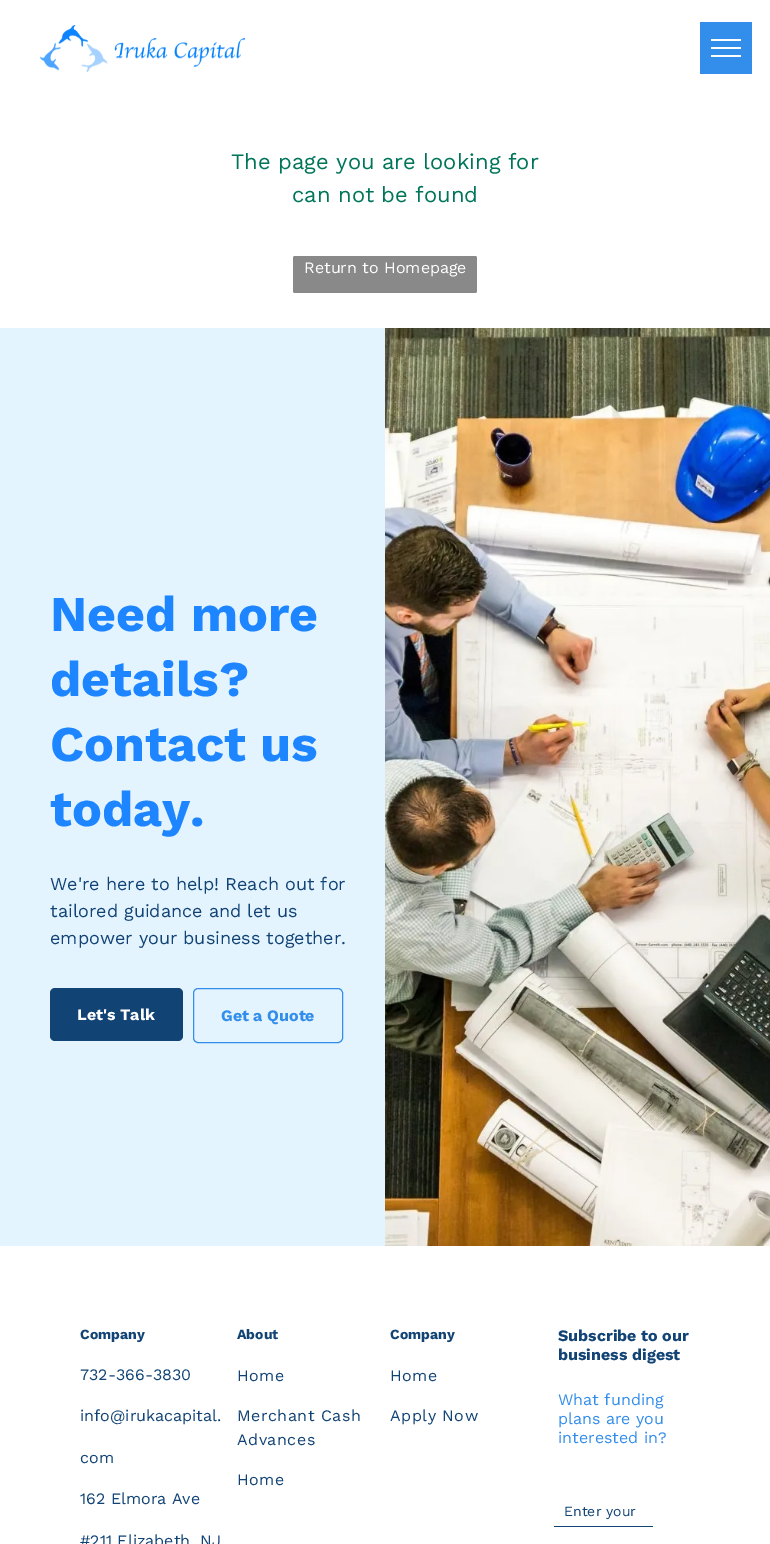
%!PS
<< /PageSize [770 1544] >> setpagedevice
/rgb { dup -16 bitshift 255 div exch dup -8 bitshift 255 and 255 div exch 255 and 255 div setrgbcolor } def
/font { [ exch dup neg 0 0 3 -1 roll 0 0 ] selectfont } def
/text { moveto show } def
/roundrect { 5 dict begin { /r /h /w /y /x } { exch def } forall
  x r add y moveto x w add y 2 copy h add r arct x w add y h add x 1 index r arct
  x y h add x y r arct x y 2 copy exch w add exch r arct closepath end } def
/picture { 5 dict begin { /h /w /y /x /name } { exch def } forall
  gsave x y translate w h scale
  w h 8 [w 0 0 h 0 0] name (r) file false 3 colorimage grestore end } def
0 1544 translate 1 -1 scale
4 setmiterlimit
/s1 { /WorkSans-Regular 22 font 16#007559 rgb } def
/s2 { /WorkSans-Regular 16 font 16#FFFFFF rgb } def
/s3 { /WorkSans-Bold 50 font 16#1C85FF rgb } def
/s4 { /WorkSans-Regular 18 font 16#114375 rgb } def
/s5 { /WorkSans-Bold 16 font 16#FFFFFF rgb } def
/s6 { /WorkSans-Bold 16 font 16#328EEA rgb } def
/s7 { /WorkSans-Bold 14 font 16#114375 rgb } def
/s8 { /WorkSans-Regular 16 font 16#114375 rgb } def
/s9 { /WorkSans-Bold 16 font 16#114375 rgb } def
/s10 { /WorkSans-Regular 16 font 16#328EEA rgb } def
/s11 { /WorkSans-Regular 14 font 16#114375 rgb } def
16#FFFFFF rgb
0 0 770 1544 rectfill
(pic1.raw) 40 25 205 47 picture
16#328EEA rgb
700 22 52 52 rectfill
16#FFFFFF rgb
711 39 30 2 rectfill
711 47 30 2 rectfill
711 55 30 2 rectfill
s1
(The page you are looking for) 231 169 text
(can not be found) 292 202 text
16#898989 rgb
293 256 184 37 2 roundrect fill
s2
(Return to Homepage) 304 273 text
16#E4F4FF rgb
0 328 385 918 rectfill
s3
(Need more) 50 631 text
(details?) 50 696 text
(Contact us) 50 761 text
(today.) 50 826 text
s4
(We're here to help! Reach out for) 50 890 text
(tailored guidance and let us) 50 917 text
(empower your business together.) 50 944 text
50 988 133 53 5 roundrect fill
s5
(Let's Talk) 77 1020 text
16#328EEA rgb
193.5 988.5 149 54 4.5 roundrect stroke
(Get a Quote) 221 1021 text
(pic2.raw) 385 328 385 918 picture
s7
(Company) 80 1339 text
s8
(732-366-3830) 80 1380 text
(info@irukacapital.) 80 1421 text
(com) 80 1463 text
(162 Elmora Ave) 80 1504 text
(#211 Elizabeth, NJ) 80 1546 text
s7
(About) 237 1339 text
/WorkSans-Regular 16 font
237 1381 moveto 0.5 0 (Home) ashow
237 1421 moveto 0.5 0 (Merchant Cash) ashow
237 1445 moveto 0.5 0 (Advances) ashow
237 1485 moveto 0.5 0 (Home) ashow
s7
(Company) 390 1339 text
/WorkSans-Regular 16 font
390 1381 moveto 0.5 0 (Home) ashow
390 1421 moveto 0.5 0 (Apply Now) ashow
s9
(Subscribe to our) 558 1341 text
(business digest) 558 1360 text
s10
(What funding) 558 1405 text
(plans are you) 558 1424 text
(interested in?) 558 1443 text
16#114375 rgb
554 1526 99 1 rectfill
s11
(Enter your) 564 1516 text
showpage
